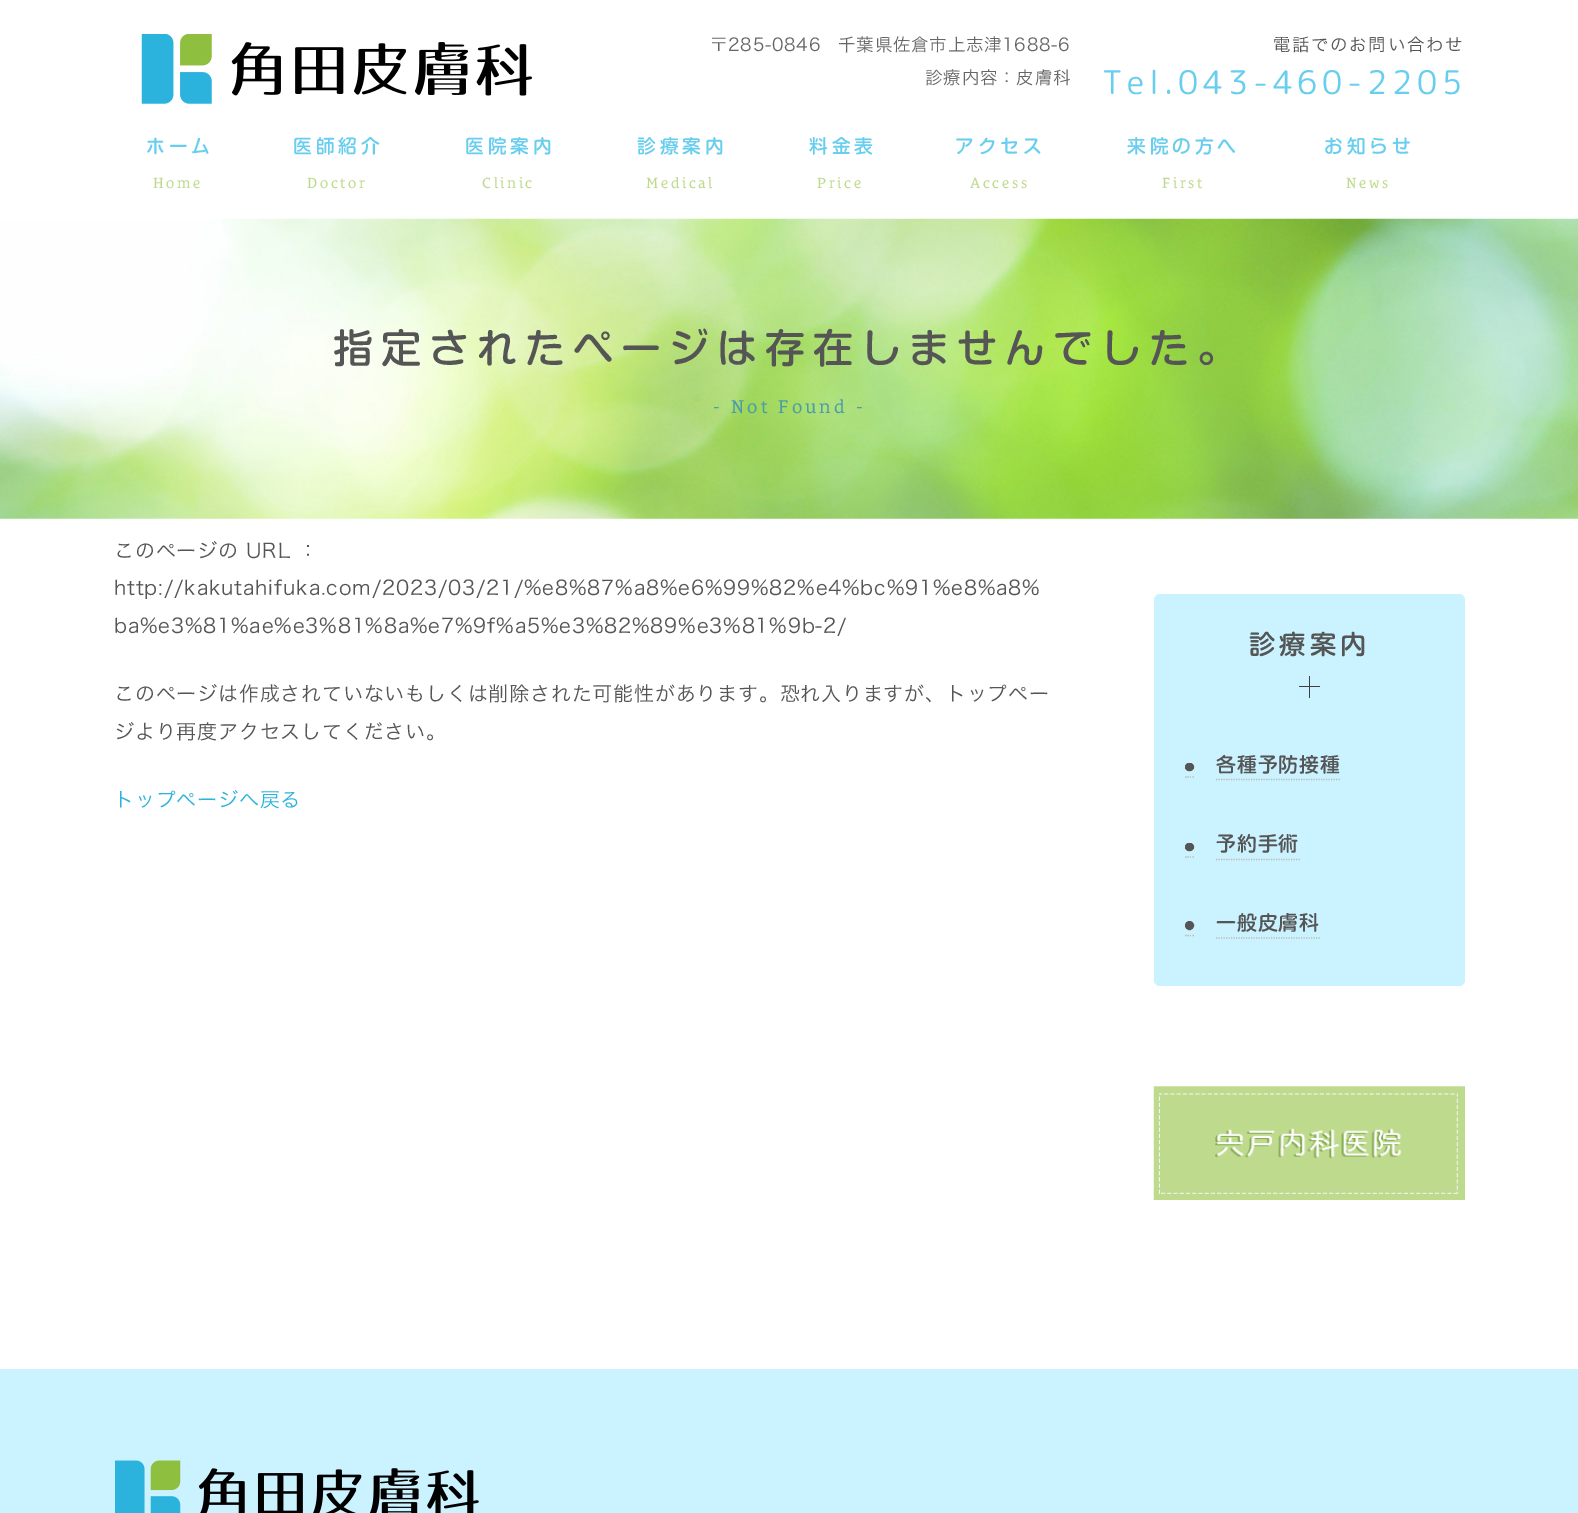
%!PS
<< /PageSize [1578 1513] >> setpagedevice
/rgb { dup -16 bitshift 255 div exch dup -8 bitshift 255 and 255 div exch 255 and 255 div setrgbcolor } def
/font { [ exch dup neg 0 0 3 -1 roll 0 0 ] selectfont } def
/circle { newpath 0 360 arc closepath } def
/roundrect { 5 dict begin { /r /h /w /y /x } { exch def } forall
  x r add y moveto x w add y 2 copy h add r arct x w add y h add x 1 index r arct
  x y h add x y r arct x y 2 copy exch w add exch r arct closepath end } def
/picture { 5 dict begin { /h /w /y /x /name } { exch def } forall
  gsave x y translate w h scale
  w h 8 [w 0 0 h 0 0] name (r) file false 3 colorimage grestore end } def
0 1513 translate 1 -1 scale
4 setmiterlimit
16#FFFFFF rgb
0 0 1578 1513 rectfill
(pic1.raw) 141 34 391 70 picture
/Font-Light 17.5 font
16#666666 rgb
710 51 moveto 0.75 0 (〒285-0846) ashow
838 51 moveto 0.75 0 (千葉県佐倉市上志津1688-6) ashow
925 84 moveto 0.75 0 (診療内容：皮膚科) ashow
16#555555 rgb
1273 51 moveto 1.6 0 (電話でのお問い合わせ) ashow
/RoundedMplus1c-Regular 32.5 font
16#68CEEF rgb
1102 94 moveto 4.75 0 (Tel.043-460-2205) ashow
/Font-Medium 18.75 font
146 153 moveto 3.75 0 (ホーム) ashow
/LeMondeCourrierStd-Regular 15 font
16#BEDB8D rgb
153 188 moveto 2.5 0 (Home) ashow
/Font-Medium 18.75 font
16#68CEEF rgb
293 153 moveto 3.75 0 (医師紹介) ashow
/LeMondeCourrierStd-Regular 15 font
16#BEDB8D rgb
307 188 moveto 2.5 0 (Doctor) ashow
/Font-Medium 18.75 font
16#68CEEF rgb
465 153 moveto 3.75 0 (医院案内) ashow
/LeMondeCourrierStd-Regular 15 font
16#BEDB8D rgb
482 188 moveto 2.5 0 (Clinic) ashow
/Font-Medium 18.75 font
16#68CEEF rgb
637 153 moveto 3.75 0 (診療案内) ashow
/LeMondeCourrierStd-Regular 15 font
16#BEDB8D rgb
646 188 moveto 2.5 0 (Medical) ashow
/Font-Medium 18.75 font
16#68CEEF rgb
809 153 moveto 3.75 0 (料金表) ashow
/LeMondeCourrierStd-Regular 15 font
16#BEDB8D rgb
817 188 moveto 2.5 0 (Price) ashow
/Font-Medium 18.75 font
16#68CEEF rgb
955 153 moveto 3.75 0 (アクセス) ashow
/LeMondeCourrierStd-Regular 15 font
16#BEDB8D rgb
970 188 moveto 2.5 0 (Access) ashow
/Font-Medium 18.75 font
16#68CEEF rgb
1127 153 moveto 3.75 0 (来院の方へ) ashow
/LeMondeCourrierStd-Regular 15 font
16#BEDB8D rgb
1162 188 moveto 2.5 0 (First) ashow
/Font-Medium 18.75 font
16#68CEEF rgb
1324 153 moveto 3.75 0 (お知らせ) ashow
/LeMondeCourrierStd-Regular 15 font
16#BEDB8D rgb
1346 188 moveto 2.5 0 (News) ashow
(pic2.raw) 0 218 1578 301 picture
/Font-Medium 40 font
16#555555 rgb
333 363 moveto 8 0 (指定されたページは存在しませんでした。) ashow
/LeMondeCourrierStd-Regular 18.75 font
16#4A9CA9 rgb
714 413 moveto 3 0 (-) ashow
731 413 moveto 3 0 (Not Found) ashow
857 413 moveto 3 0 (-) ashow
/Font-Light 20 font
16#555555 rgb
114 558 moveto 0.8 0 (このページの URL ：) ashow
114 595 moveto 0.8 0 (http://kakutahifuka.com/2023/03/21/%e8%87%a8%e6%99%82%e4%bc%91%e8%a8%) ashow
114 633 moveto 0.8 0 (ba%e3%81%ae%e3%81%8a%e7%9f%a5%e3%82%89%e3%81%9b-2/) ashow
114 701 moveto 0.8 0 (このページは作成されていないもしくは削除された可能性があります。恐れ入りますが、トップペー) ashow
114 739 moveto 0.8 0 (ジより再度アクセスしてください。) ashow
16#2BB2DD rgb
114 807 moveto 0.8 0 (トップページへ戻る) ashow
16#CBF2FF rgb
1154 594 311 392 6 roundrect fill
/Font-Medium 26.25 font
16#555555 rgb
1249 654 moveto 4 0 (診療案内) ashow
16#404040 rgb
1299 686 21 1 rectfill
1309 676 1 22 rectfill
16#BBBBBB rgb
1.2 setlinewidth
1185 777 moveto 1186.5 777 lineto 1187.5 777 moveto 1189 777 lineto 1190 777 moveto 1191 777 lineto 1192.5 777 moveto 1194 777 lineto stroke
[1.25 1.25] 0 setdash
1216 779.5 moveto 1341 779.5 lineto stroke
16#555555 rgb
1185.5 763.5 8 7 3.5 roundrect gsave fill grestore
1 setlinewidth
[] 0 setdash
stroke
/Font-Medium 20 font
1216 772 moveto 0.8 0 (各種予防接種) ashow
16#BBBBBB rgb
1.2 setlinewidth
1185 857 moveto 1186.5 857 lineto 1187.5 857 moveto 1189 857 lineto 1190 857 moveto 1191 857 lineto 1192.5 857 moveto 1194 857 lineto stroke
[1.25 1.25] 0 setdash
1216 859.5 moveto 1300 859.5 lineto stroke
16#555555 rgb
1185.5 843.5 8 7 3.5 roundrect gsave fill grestore
1 setlinewidth
[] 0 setdash
stroke
1216 851 moveto 0.8 0 (予約手術) ashow
16#BBBBBB rgb
1.2 setlinewidth
1185 935.5 moveto 1186.5 935.5 lineto 1187.5 935.5 moveto 1189 935.5 lineto 1190 935.5 moveto 1191 935.5 lineto 1192.5 935.5 moveto 1194 935.5 lineto stroke
[1.25 1.25] 0 setdash
1216 938 moveto 1320 938 lineto stroke
16#555555 rgb
1189.5 925.5 4 circle gsave fill grestore
1 setlinewidth
[] 0 setdash
stroke
1216 930 moveto 0.8 0 (一般皮膚科) ashow
(pic3.raw) 1153 1086 312 114 picture
16#CBF2FF rgb
0 1369 1578 144 rectfill
(pic4.raw) 115 1460 364 53 picture
showpage
